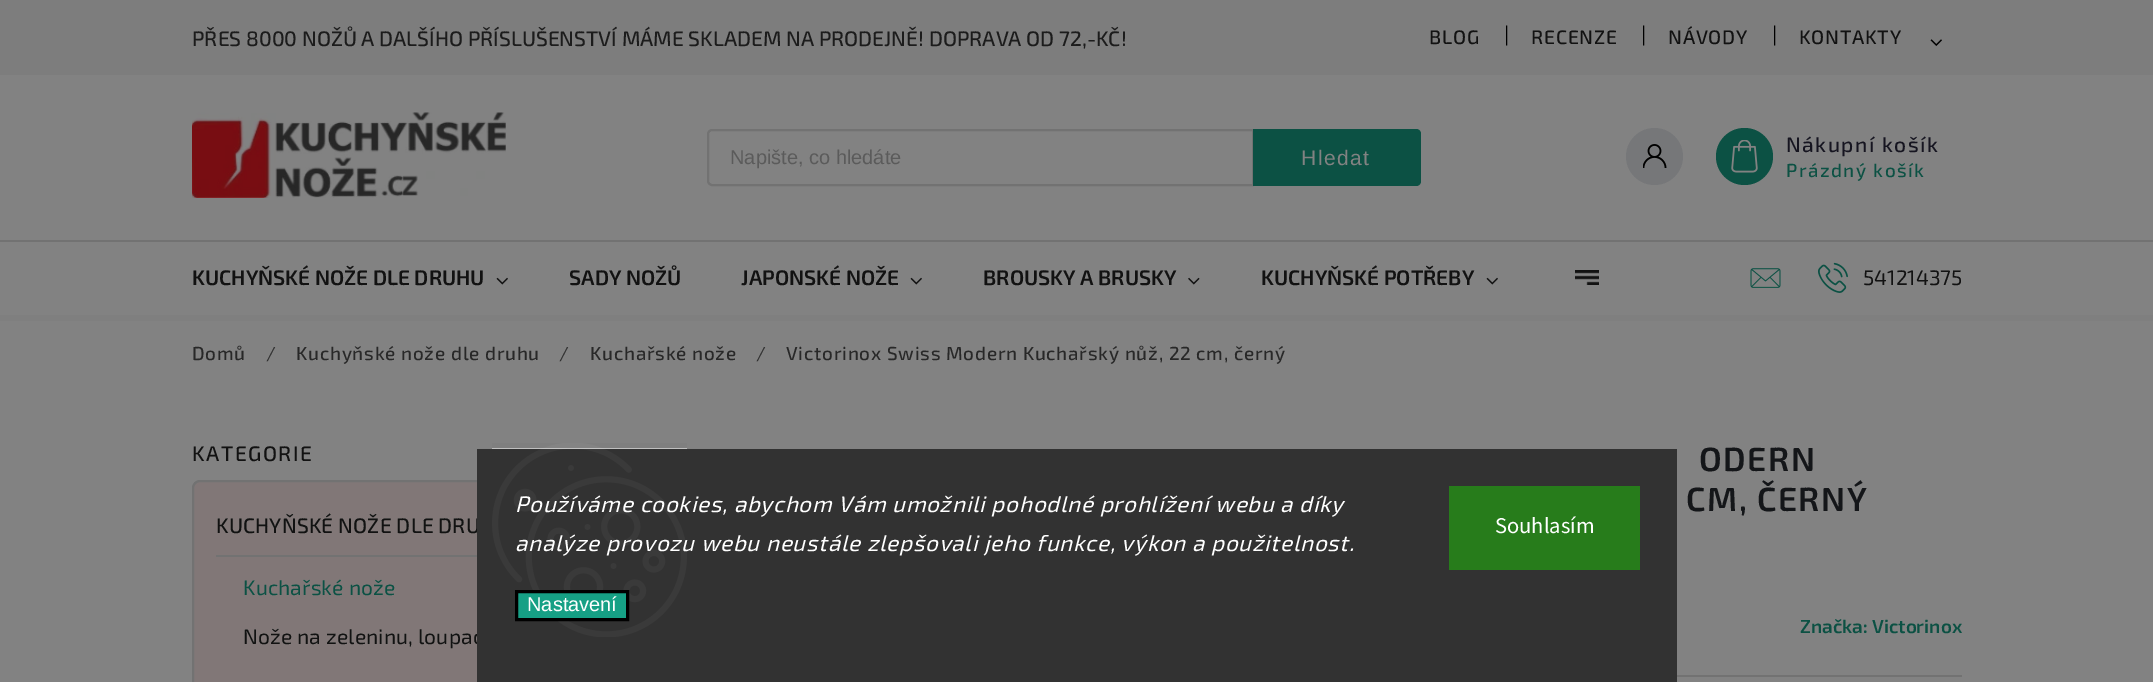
%!PS
<< /PageSize [2153 682] /PageUsesTransparency true >> setpagedevice
/rgb { dup -16 bitshift 255 div exch dup -8 bitshift 255 and 255 div exch 255 and 255 div setrgbcolor } def
/font { [ exch dup neg 0 0 3 -1 roll 0 0 ] selectfont } def
/text { moveto show } def
/alpha { dup .setfillconstantalpha .setstrokeconstantalpha } def
/circle { newpath 0 360 arc closepath } def
/roundrect { 5 dict begin { /r /h /w /y /x } { exch def } forall
  x r add y moveto x w add y 2 copy h add r arct x w add y h add x 1 index r arct
  x y h add x y r arct x y 2 copy exch w add exch r arct closepath end } def
/shadow { 12 dict begin { /a /b /q /h /w /y /x } { exch def } forall gsave /was 0 def
  9 -2 -9 { dup b mul 4 div /e exch def 1 sub .425 mul 2.718 exch exp 1 add a .99 .min exch div /now exch def
    1 1 now sub 1 was sub div sub alpha /was now def
    w h .min e 2 mul add 0 gt { x e sub y e sub w e 2 mul add h e 2 mul add
      q e add b .6 mul add w h .min 2 div e add .min 0 .max roundrect fill } if } for grestore end } def
/picture { 5 dict begin { /h /w /y /x /name } { exch def } forall
  gsave x y translate w h scale
  w h 8 [w 0 0 h 0 0] name (r) file false 3 colorimage grestore end } def
0 .pushpdf14devicefilter
0 682 translate 1 -1 scale
4 setmiterlimit
/s1 { /Exo2-Medium 21 font 16#373737 rgb } def
/s2 { /Exo2-Regular 21 font 16#000000 rgb } def
/s3 { /LiberationSans-Regular 20 font 16#B4B4B4 rgb } def
/s4 { /Exo2-SemiBold 21 font 16#222222 rgb } def
/s5 { /Exo2-Regular 21 font 16#222222 rgb } def
/s6 { /Exo2-SemiBold 18.9 font 16#16A085 rgb } def
/s7 { /LiberationSans-Regular 20 font 16#FFFFFF rgb } def
/s8 { /SourceSans3-Regular 22.5 font 16#FFFFFF rgb } def
16#FFFFFF rgb
0 0 2153 682 rectfill
16#F5F5F5 rgb
0 0 2153 75 rectfill
s1
(PŘES 8000 NOŽŮ A DALŠÍHO PŘÍSLUŠENSTVÍ MÁME SKLADEM NA PRODEJNĚ! DOPRAVA OD 72,-KČ!) 192 46 text
/Exo2-Medium 19.5 font
16#222222 rgb
1429 44 moveto 0.75 0 (BLOG) ashow
s2
(|) 1504 42 text
/Exo2-Medium 19.5 font
16#222222 rgb
1531 44 moveto 0.75 0 (RECENZE) ashow
s2
(|) 1641 42 text
/Exo2-Medium 19.5 font
16#222222 rgb
1668 44 moveto 0.75 0 (NÁVODY) ashow
s2
(|) 1772 42 text
/Exo2-Medium 19.5 font
16#222222 rgb
1799 44 moveto 0.75 0 (KONTAKTY) ashow
(pic1.raw) 1930 39 12 7 picture
16#DFDFDF rgb
0 240 2153 2 rectfill
(pic2.raw) 192 112 314 86 picture
2 setlinewidth
712 130 moveto 1253 130 lineto 1253 185 lineto 712 185 lineto 710 185 708 183 708 181 curveto 708 134 lineto 708 132 710 130 712 130 curveto closepath stroke
s3
(Napište, co hledáte) 730 164 text
16#16A085 rgb
1253 129 moveto 1416 129 lineto 1419 129 1421 131 1421 134 curveto 1421 181 lineto 1421 184 1419 186 1416 186 curveto 1253 186 lineto closepath fill
/LiberationSans-Regular 21 font
16#FFFFFF rgb
1301 165 moveto 1.5 0 (Hledat) ashow
16#EAECEF rgb
1654.5 156.5 28.5 circle fill
(pic3.raw) 1643 144 24 24 picture
16#16A085 rgb
1744.5 156.5 28.5 circle fill
(pic4.raw) 1731 140 27 33 picture
/Exo2-Medium 21 font
16#2B2A40 rgb
1786 152 moveto 1.5 0 (Nákupní košík) ashow
/Exo2-Medium 18.9 font
16#16A085 rgb
1786 177 moveto 1.5 0 (Prázdný košík) ashow
s4
(KUCHYŇSKÉ NOŽE DLE DRUHU) 192 285 text
(pic5.raw) 496 277 12 8 picture
(SADY NOŽŮ) 569 285 text
(JAPONSKÉ NOŽE) 741 285 text
(pic5.raw) 910 277 12 8 picture
(BROUSKY A BRUSKY) 983 285 text
(pic6.raw) 1188 277 12 8 picture
(KUCHYŇSKÉ POTŘEBY) 1261 285 text
(pic5.raw) 1486 277 12 8 picture
(pic7.raw) 1575 270 24 15 picture
(pic8.raw) 1750 268 31 20 picture
(pic9.raw) 1818 262 30 31 picture
s5
(541214375) 1863 285 text
16#FAFAFA rgb
0 315 2153 6 rectfill
/Exo2-Medium 18.9 font
16#505050 rgb
192 360 moveto 0.75 0 (Domů) ashow
/Exo2-Regular 18.9 font
16#606060 rgb
266 360 moveto 0.75 0 (/) ashow
/Exo2-Medium 18.9 font
16#505050 rgb
296 360 moveto 0.75 0 (Kuchyňské nože dle druhu) ashow
/Exo2-Regular 18.9 font
16#606060 rgb
559 360 moveto 0.75 0 (/) ashow
/Exo2-Medium 18.9 font
16#505050 rgb
590 360 moveto 0.75 0 (Kuchařské nože) ashow
/Exo2-Regular 18.9 font
16#606060 rgb
756 360 moveto 0.75 0 (/) ashow
/Exo2-Medium 18.9 font
16#505050 rgb
786 360 moveto 0.75 0 (Victorinox Swiss Modern Kuchařský nůž, 22 cm, černý) ashow
/Exo2-Medium 21 font
16#222222 rgb
192 461 moveto 1.5 0 (KATEGORIE) ashow
16#FDEDEC rgb
193 481 396 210 7 roundrect gsave fill grestore
16#DFDFDF rgb
stroke
216 555 261 2 rectfill
16#222222 rgb
216 533 moveto 0.15 0 (KUCHYŇSKÉ NOŽE DLE DRU) ashow
/Exo2-Regular 21 font
16#16A085 rgb
243 595 moveto 0.15 0 (Kuchařské nože) ashow
16#222222 rgb
243 644 moveto 0.15 0 (Nože na zeleninu, loupac) ashow
/Exo2-SemiBold 33.5 font
16#292B32 rgb
1699 471 moveto 1.5 0 (ODERN) ashow
1686 511 moveto 1.5 0 (CM, ČERNÝ) ashow
s6
(Značka: Victorinox) 1800 633 text
16#DFDFDF rgb
1677 675 285 2 rectfill
16#000000 rgb
-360 -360 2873 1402 0 120 0.5 shadow
16#323232 rgb
477 449 1200 233 rectfill
(pic10.raw) 492 443 195 194 picture
/Exo2-Italic 22.5 font
16#FFFFFF rgb
515 512 moveto 0.75 0 (Používáme cookies, abychom Vám umožnili pohodlné prohlížení webu a díky) ashow
515 551 moveto 0.75 0 (analýze provozu webu neustále zlepšovali jeho funkce, výkon a použitelnost.) ashow
16#16A085 rgb
516.5 591.5 moveto 627.5 591.5 lineto 627.5 619.5 lineto 516.5 619.5 lineto closepath gsave fill grestore
16#000000 rgb
3 setlinewidth
stroke
s7
(Nastavení) 527 611 text
16#277C1B rgb
1449 486 191 84 rectfill
s8
(Souhlasím) 1495 533 text
.poppdf14devicefilter showpage
